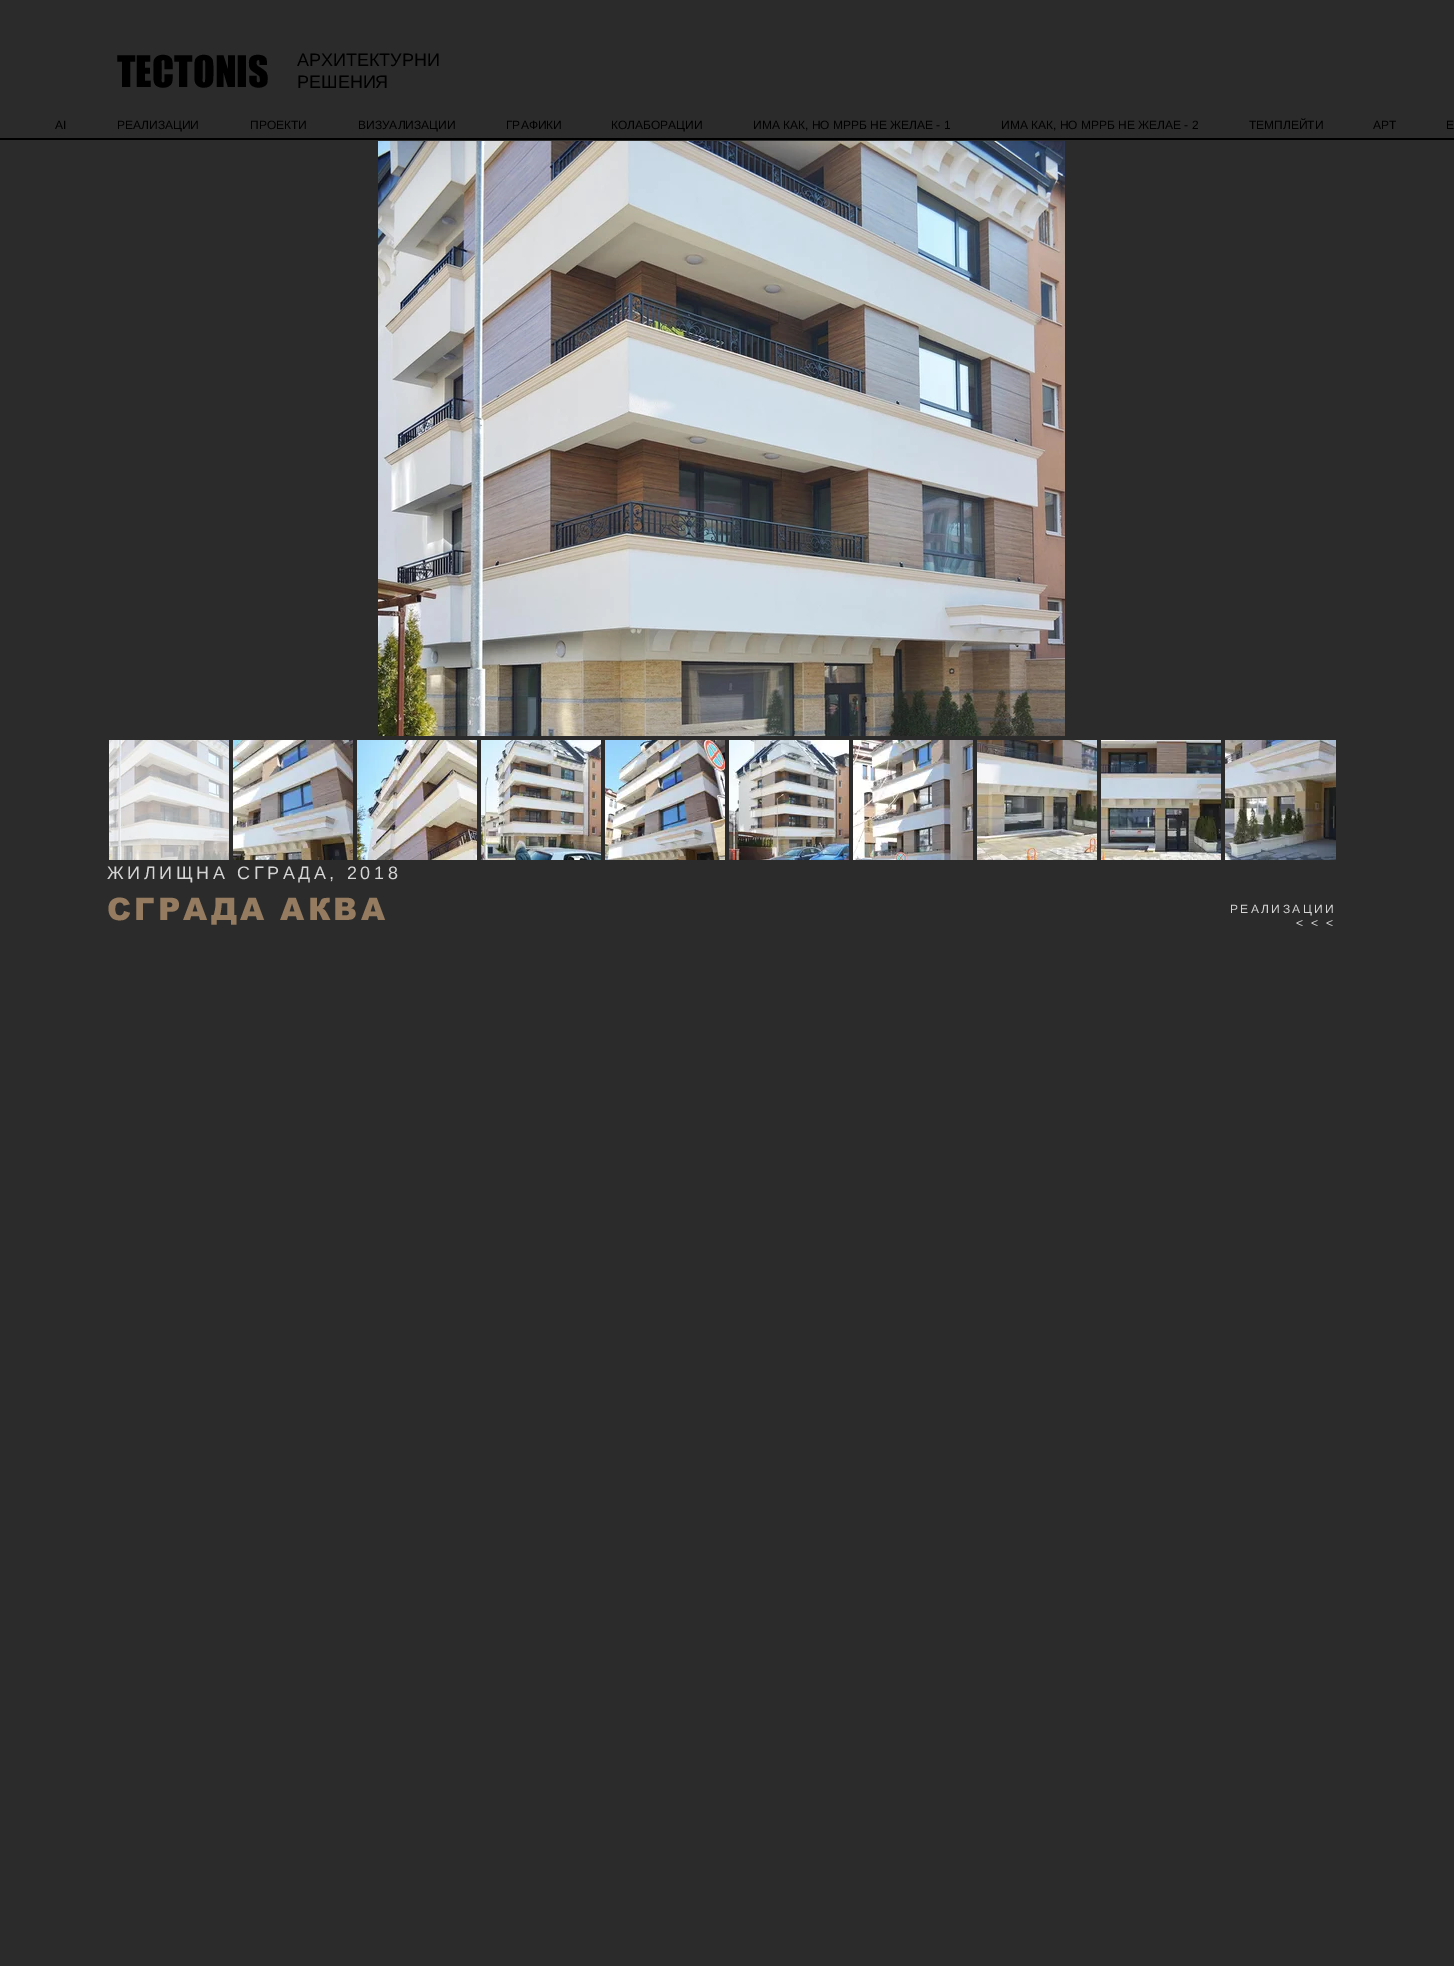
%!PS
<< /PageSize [1454 1966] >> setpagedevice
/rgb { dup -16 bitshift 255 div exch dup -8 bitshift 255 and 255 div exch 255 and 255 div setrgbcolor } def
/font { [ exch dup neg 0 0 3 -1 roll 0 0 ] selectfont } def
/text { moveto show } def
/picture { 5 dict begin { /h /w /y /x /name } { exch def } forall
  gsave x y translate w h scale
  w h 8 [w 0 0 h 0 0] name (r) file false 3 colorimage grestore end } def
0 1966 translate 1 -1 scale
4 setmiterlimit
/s1 { /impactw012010-Regular 40 font 16#000000 rgb } def
/s2 { /LiberationSans-Regular 18 font 16#000000 rgb } def
/s3 { /LiberationSans-Regular 12 font 16#000000 rgb } def
16#2B2B2B rgb
0 0 1454 1966 rectfill
s1
(TECTONIS) 117 87 text
s2
(АРХИТЕКТУРНИ) 297 66 text
(РЕШЕНИЯ) 297 88 text
s3
(AI) 55 129 text
(РЕАЛИЗАЦИИ) 117 129 text
(ПРОЕКТИ) 250 129 text
(ВИЗУАЛИЗАЦИИ) 358 129 text
(ГРАФИКИ) 506 129 text
(КОЛАБОРАЦИИ) 611 129 text
(ИМА КАК, НО МРРБ НЕ ЖЕЛАЕ - 1) 753 129 text
(ИМА КАК, НО МРРБ НЕ ЖЕЛАЕ - 2) 1001 129 text
(ТЕМПЛЕЙТИ) 1249 129 text
(АРТ) 1373 129 text
(Е) 1446 129 text
0 138 1454 2 rectfill
(pic1.raw) 378 141 687 595 picture
(pic2.raw) 109 740 120 120 picture
(pic3.raw) 233 740 120 120 picture
(pic4.raw) 357 740 120 120 picture
(pic5.raw) 481 740 120 120 picture
(pic6.raw) 605 740 120 120 picture
(pic7.raw) 729 740 120 120 picture
(pic8.raw) 853 740 120 120 picture
(pic9.raw) 977 740 120 120 picture
(pic10.raw) 1101 740 120 120 picture
(pic11.raw) 1225 740 111 120 picture
/LiberationSans-Regular 18 font
16#D5D5D5 rgb
107 879 moveto 3.6 0 (ЖИЛИЩНА СГРАДА, 2018) ashow
/arial-Black 31 font
16#957B5F rgb
107 920 moveto 3.1 0 (СГРАДА АКВА) ashow
/LiberationSans-Regular 12 font
16#D5D5D5 rgb
1230 913 moveto 2.4 0 (РЕАЛИЗАЦИИ) ashow
1296 927 moveto 2.4 0 (< < <) ashow
showpage
